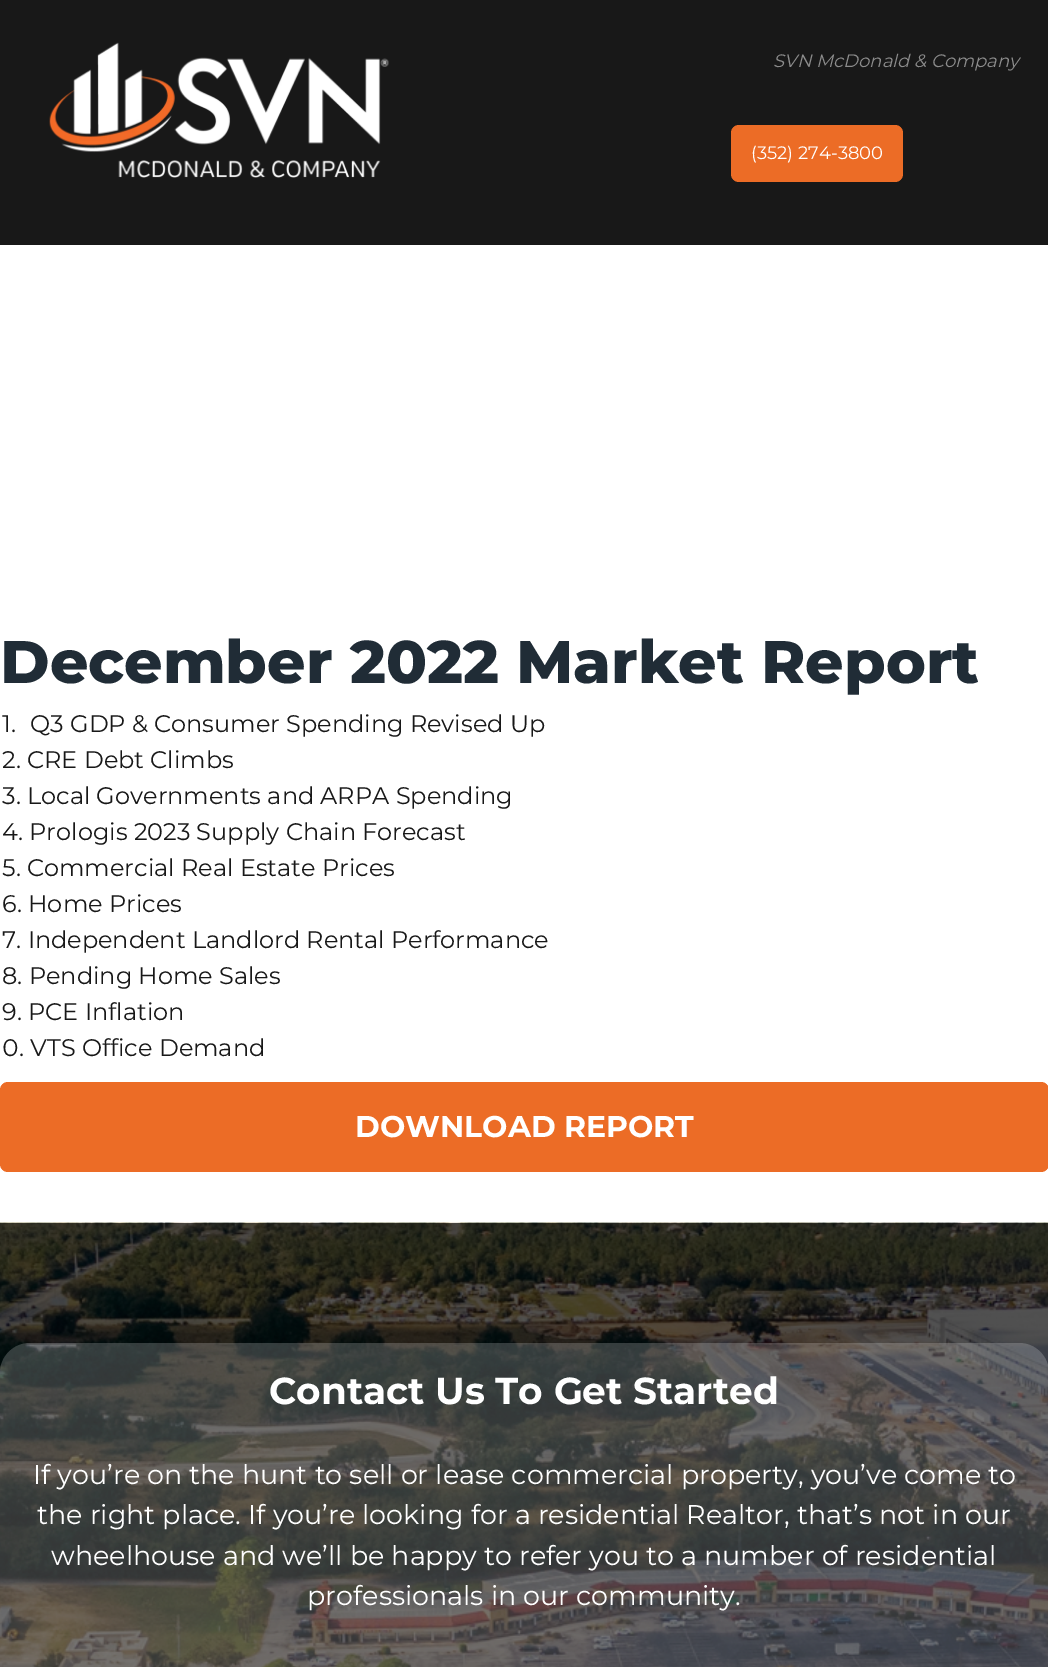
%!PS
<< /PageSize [1048 1667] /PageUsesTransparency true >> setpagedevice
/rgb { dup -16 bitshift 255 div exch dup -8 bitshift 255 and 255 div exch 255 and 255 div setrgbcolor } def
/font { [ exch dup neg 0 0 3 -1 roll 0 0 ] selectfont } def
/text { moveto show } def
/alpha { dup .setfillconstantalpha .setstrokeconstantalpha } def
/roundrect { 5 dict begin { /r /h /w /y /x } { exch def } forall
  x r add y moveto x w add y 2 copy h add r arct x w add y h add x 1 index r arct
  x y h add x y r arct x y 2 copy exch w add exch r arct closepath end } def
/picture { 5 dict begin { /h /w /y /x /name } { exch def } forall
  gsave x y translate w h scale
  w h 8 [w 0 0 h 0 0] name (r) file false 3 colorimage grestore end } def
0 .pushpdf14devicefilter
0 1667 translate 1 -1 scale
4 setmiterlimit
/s1 { /Montserrat-Italic 18 font 16#8C8C8C rgb } def
/s2 { /Montserrat-Regular 18 font 16#FFFFFF rgb } def
/s3 { /Montserrat-ExtraBold 60 font 16#202C36 rgb } def
/s4 { /Montserrat-Regular 24 font 16#181818 rgb } def
/s5 { /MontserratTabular-Regular 24 font 16#181818 rgb } def
/s6 { /Montserrat-Bold 30 font 16#FFFFFF rgb } def
/s7 { /Montserrat-Bold 37.5 font 16#FFFFFF rgb } def
/s8 { /Montserrat-Regular 27 font 16#FFFFFF rgb } def
16#FFFFFF rgb
0 0 1048 1667 rectfill
16#181818 rgb
0 0 1048 245 rectfill
(pic1.raw) 49 42 340 136 picture
s1
(SVN McDonald & Company) 773 67 text
16#EC6C26 rgb
731 125 172 57 8 roundrect fill
s2
(\(352\) 274-3800) 751 159 text
s3
(December 2022 Market Report) 0 683 text
s4
(1.) 2 732 text
(Q3 GDP & Consumer Spending Revised Up) 30 732 text
(2. CRE Debt Climbs) 2 768 text
(3. Local Governments and ARPA Spending) 2 804 text
(4. Prologis 2023 Supply Chain Forecast) 2 840 text
(5. Commercial Real Estate Prices) 2 876 text
(6. Home Prices) 2 912 text
(7. Independent Landlord Rental Performance) 2 948 text
(8. Pending Home Sales) 2 984 text
(9. PCE Inflation) 2 1020 text
s5
(0.) 2 1056 text
s4
(VTS Office Demand) 30 1056 text
16#EC6C26 rgb
0 1082 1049 90 8 roundrect fill
s6
(DOWNLOAD REPORT) 355 1137 text
(pic2.raw) 0 1222 1048 445 picture
0.2 alpha
0 1343 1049 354 30 roundrect fill
1 alpha
s7
(Contact Us To Get Started) 269 1404 text
s8
(If you’re on the hunt to sell or lease commercial property, you’ve come to) 33 1484 text
(the right place. If you’re looking for a residential Realtor, that’s not in our) 37 1524 text
(wheelhouse and we’ll be happy to refer you to a number of residential) 51 1565 text
(professionals in our community.) 307 1605 text
.poppdf14devicefilter showpage
